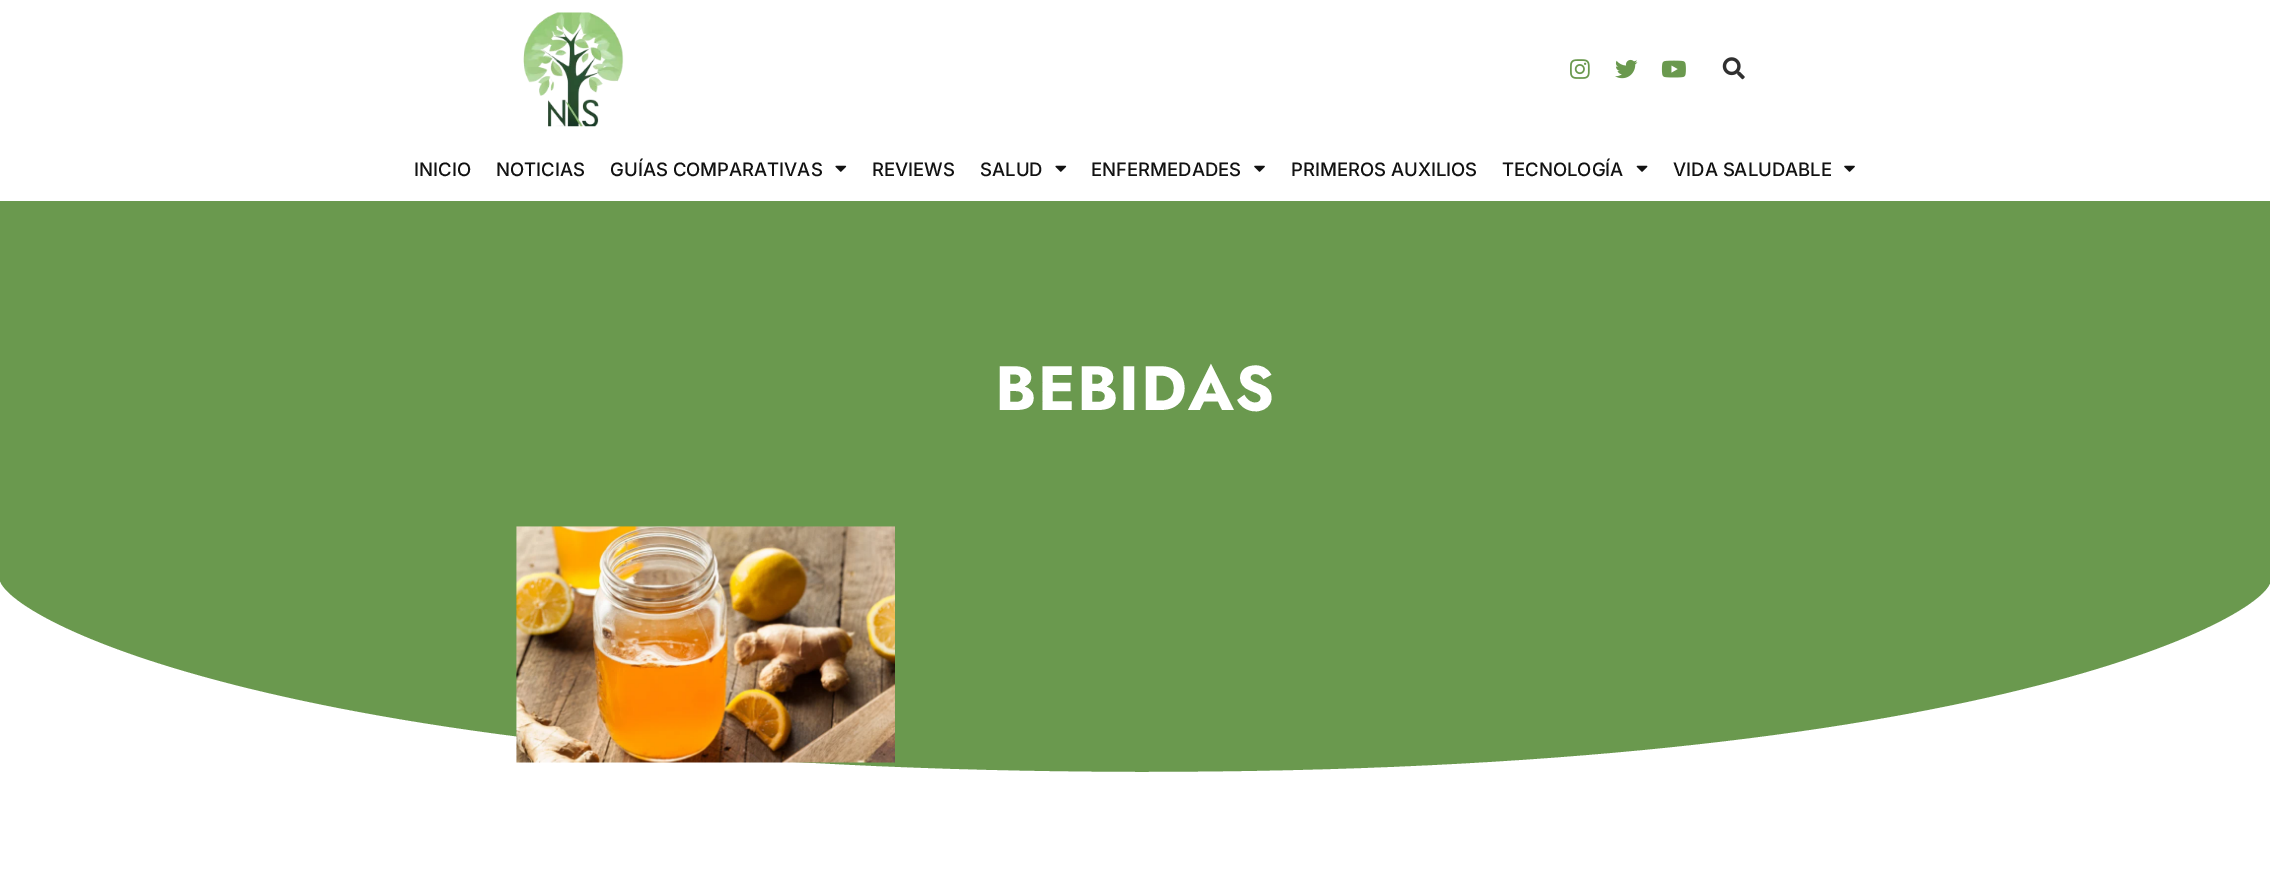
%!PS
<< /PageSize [2270 876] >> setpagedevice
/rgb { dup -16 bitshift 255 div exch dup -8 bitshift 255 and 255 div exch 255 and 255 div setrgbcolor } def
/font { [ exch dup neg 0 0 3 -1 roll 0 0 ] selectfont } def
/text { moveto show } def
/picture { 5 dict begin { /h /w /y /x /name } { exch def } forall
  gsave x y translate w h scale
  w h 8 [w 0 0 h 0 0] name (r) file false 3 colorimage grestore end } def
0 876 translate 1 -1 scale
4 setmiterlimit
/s1 { /Inter-Medium 18.5 font 16#121212 rgb } def
16#FFFFFF rgb
0 0 2270 876 rectfill
(pic1.raw) 523 12 101 115 picture
(pic2.raw) 1570 59 20 20 picture
(pic3.raw) 1615 59 23 20 picture
(pic4.raw) 1661 60 25 18 picture
(pic5.raw) 1722 57 23 23 picture
s1
(INICIO) 414 176 text
(NOTICIAS) 496 176 text
(GUÍAS COMPARATIVAS) 610 176 text
(pic6.raw) 835 165 12 7 picture
(REVIEWS) 872 176 text
(SALUD) 980 176 text
(pic6.raw) 1055 165 12 7 picture
(ENFERMEDADES) 1091 176 text
(pic7.raw) 1254 165 11 7 picture
(PRIMEROS AUXILIOS) 1291 176 text
(TECNOLOGÍA) 1502 176 text
(pic8.raw) 1636 165 12 7 picture
(VIDA SALUDABLE) 1673 176 text
(pic7.raw) 1844 165 11 7 picture
16#6A994E rgb
0 201 2270 571 rectfill
/Jost-Bold 62.5 font
16#FFFFFF rgb
995 410 moveto 1.25 0 (BEBIDAS) ashow
1135 772 moveto 287 770 1 617 -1 578 curveto -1 778 lineto 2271 778 lineto 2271 580 lineto 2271 616 1983 773 1135 772 curveto closepath fill
(pic9.raw) 516 526 379 237 picture
showpage
